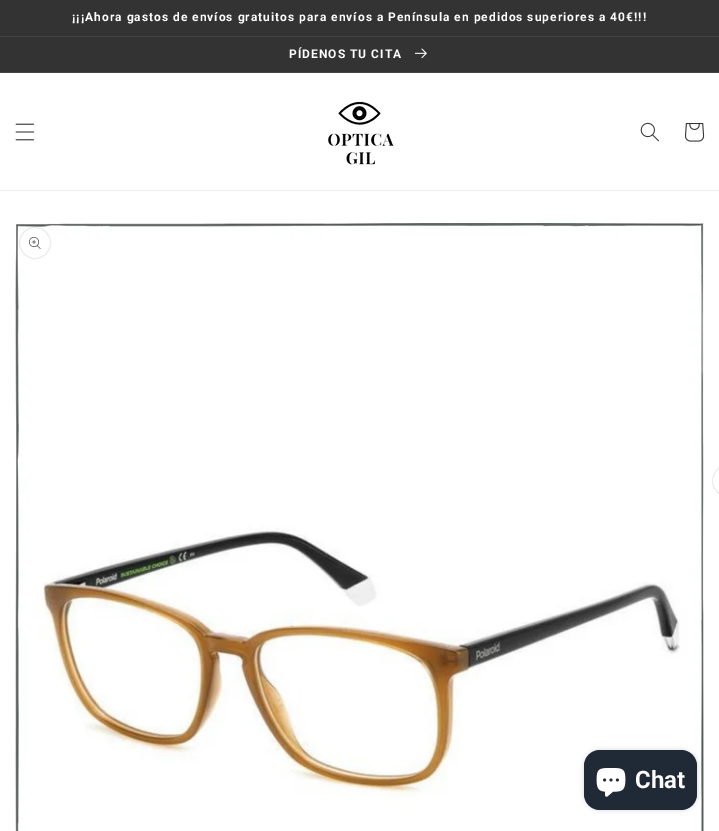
%!PS
<< /PageSize [719 831] /PageUsesTransparency true >> setpagedevice
/rgb { dup -16 bitshift 255 div exch dup -8 bitshift 255 and 255 div exch 255 and 255 div setrgbcolor } def
/font { [ exch dup neg 0 0 3 -1 roll 0 0 ] selectfont } def
/text { moveto show } def
/alpha { dup .setfillconstantalpha .setstrokeconstantalpha } def
/circle { newpath 0 360 arc closepath } def
/roundrect { 5 dict begin { /r /h /w /y /x } { exch def } forall
  x r add y moveto x w add y 2 copy h add r arct x w add y h add x 1 index r arct
  x y h add x y r arct x y 2 copy exch w add exch r arct closepath end } def
/shadow { 12 dict begin { /a /b /q /h /w /y /x } { exch def } forall gsave /was 0 def
  9 -2 -9 { dup b mul 4 div /e exch def 1 sub .425 mul 2.718 exch exp 1 add a .99 .min exch div /now exch def
    1 1 now sub 1 was sub div sub alpha /was now def
    w h .min e 2 mul add 0 gt { x e sub y e sub w e 2 mul add h e 2 mul add
      q e add b .6 mul add w h .min 2 div e add .min 0 .max roundrect fill } if } for grestore end } def
/picture { 5 dict begin { /h /w /y /x /name } { exch def } forall
  gsave x y translate w h scale
  w h 8 [w 0 0 h 0 0] name (r) file false 3 colorimage grestore end } def
0 .pushpdf14devicefilter
0 831 translate 1 -1 scale
4 setmiterlimit
/s1 { /Roboto-Bold 24 font 16#FFFFFF rgb } def
16#FFFFFF rgb
0 0 719 831 rectfill
16#333333 rgb
0 0 719 36 rectfill
16#434343 rgb
0 36 719 1 rectfill
/Roboto-Bold 12 font
16#FFFFFF rgb
72 21 moveto 1 0 (¡¡¡Ahora gastos de envíos gratuitos para envíos a Península en pedidos superiores a 40€!!!) ashow
16#333333 rgb
0 37 719 35 rectfill
16#434343 rgb
0 72 719 1 rectfill
16#FFFFFF rgb
289 58 moveto 1 0 (PÍDENOS TU CITA) ashow
(pic1.raw) 415 48 12 11 picture
16#EFEFEF rgb
0 190 719 1 rectfill
(pic2.raw) 15 123 20 18 picture
(pic3.raw) 328 101 66 64 picture
(pic4.raw) 640 122 19 20 picture
(pic5.raw) 685 123 20 19 picture
(pic6.raw) 15 223 689 608 picture
16#FFFFFF rgb
35 243 15.5 circle gsave fill grestore
16#EBEBEB rgb
stroke
(pic7.raw) 29 237 12 12 picture
712.5 465.5 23 31 15.5 roundrect stroke
16#000000 rgb
584 750 113 60 16 2.5 0.15 shadow
16#202A36 rgb
584 750 113 60 16 roundrect fill
(pic8.raw) 596 768 30 29 picture
s1
(Chat) 635 788 text
.poppdf14devicefilter showpage
